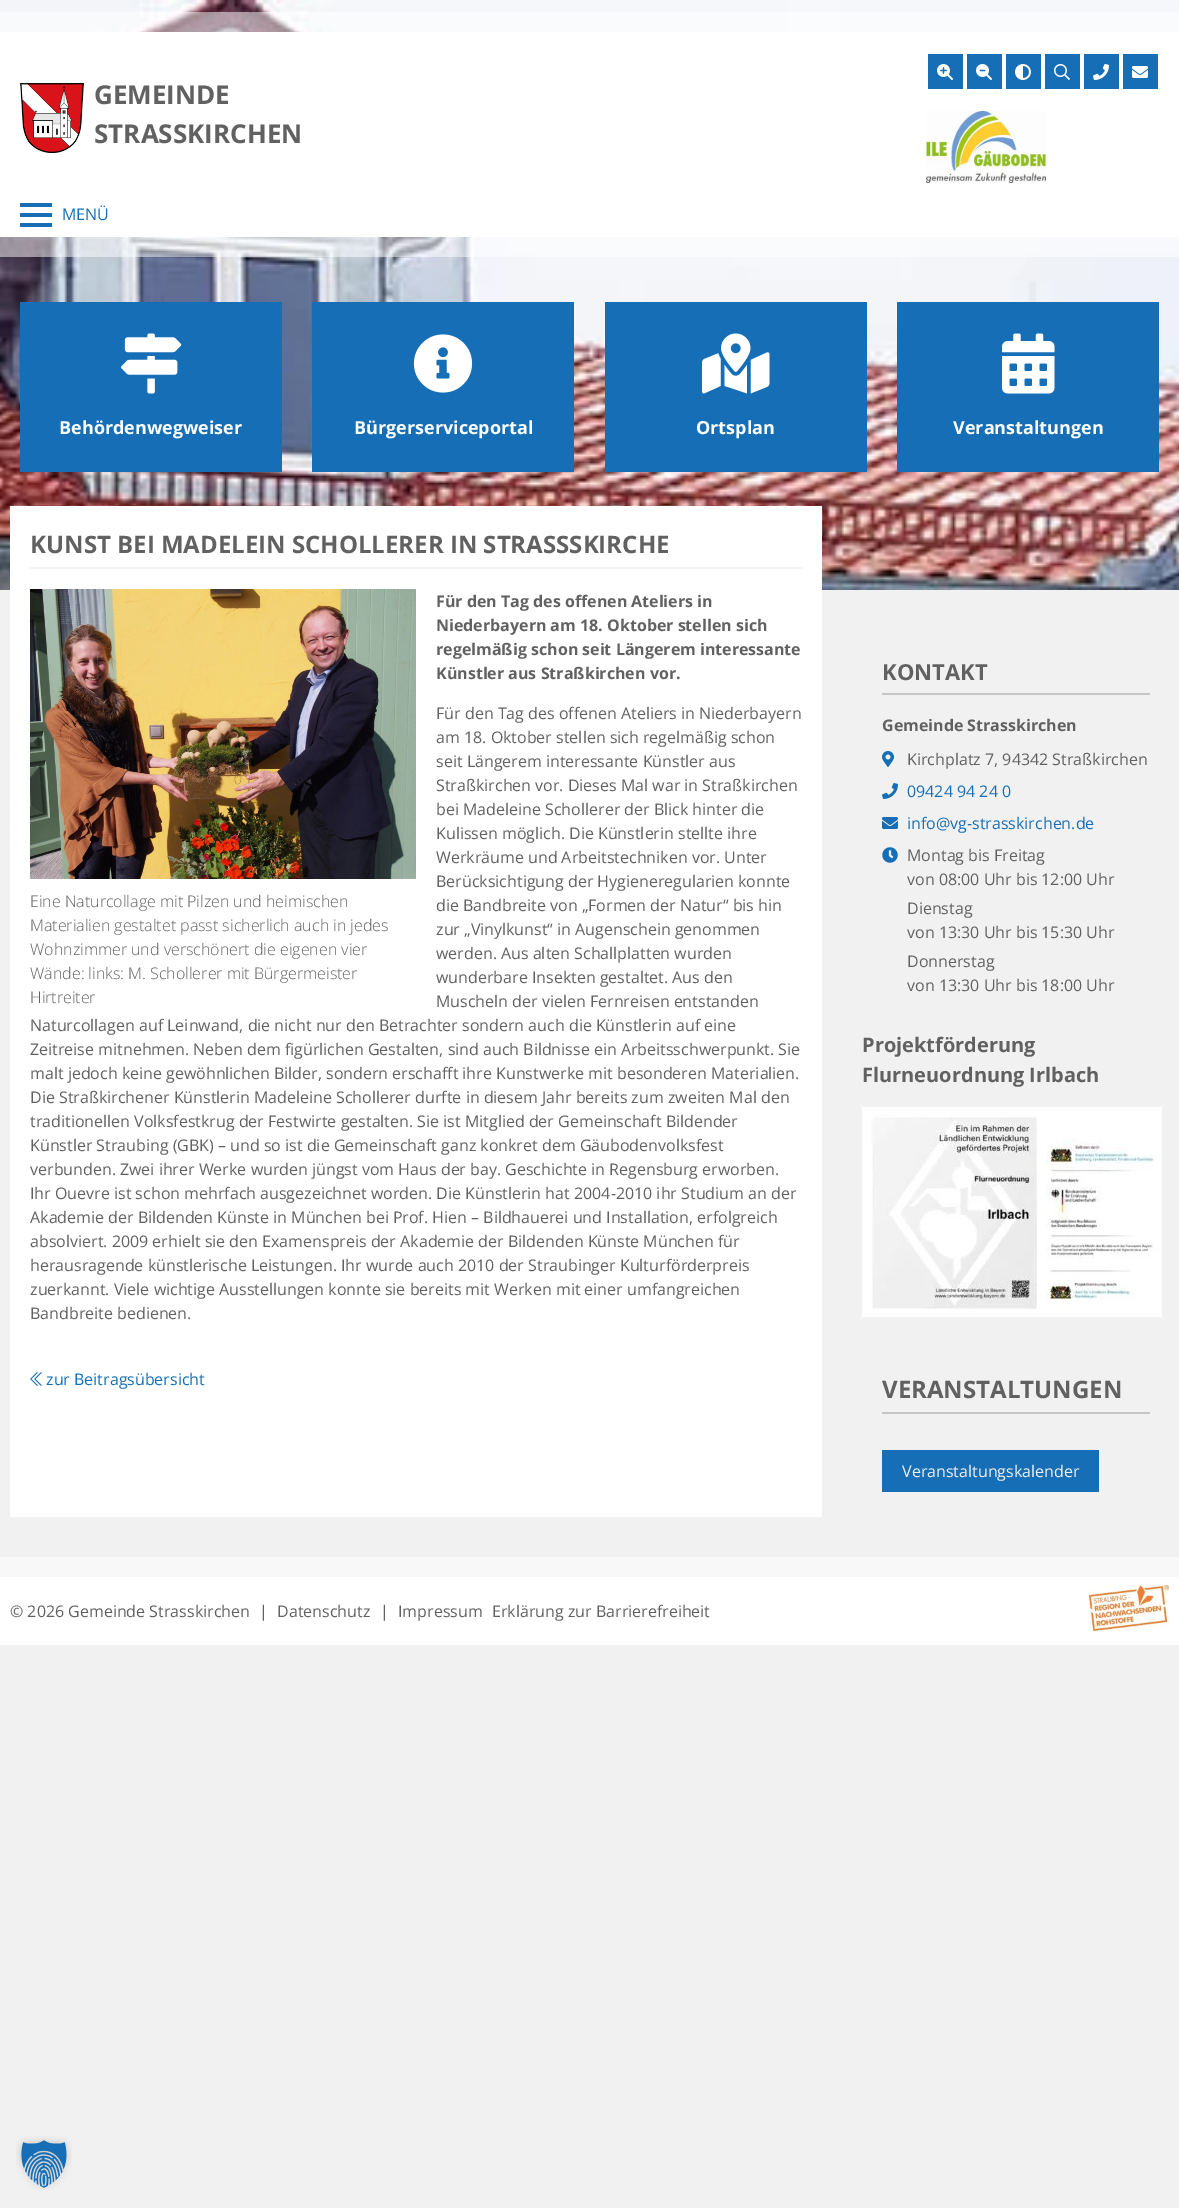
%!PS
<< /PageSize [1179 2208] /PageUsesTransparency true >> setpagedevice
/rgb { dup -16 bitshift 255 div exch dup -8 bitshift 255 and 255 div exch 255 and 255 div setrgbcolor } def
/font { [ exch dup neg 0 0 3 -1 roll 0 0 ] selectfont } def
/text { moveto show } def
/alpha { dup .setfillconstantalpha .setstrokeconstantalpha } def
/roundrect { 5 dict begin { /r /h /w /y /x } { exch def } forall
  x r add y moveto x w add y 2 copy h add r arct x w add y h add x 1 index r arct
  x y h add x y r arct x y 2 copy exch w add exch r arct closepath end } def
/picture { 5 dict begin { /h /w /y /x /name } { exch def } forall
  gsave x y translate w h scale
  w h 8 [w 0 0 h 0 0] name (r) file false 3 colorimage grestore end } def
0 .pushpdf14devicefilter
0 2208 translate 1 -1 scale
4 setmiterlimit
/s1 { /OpenSans-Bold 26 font 16#616161 rgb } def
/s2 { /OpenSans-Regular 16 font 16#166FB6 rgb } def
/s3 { /OpenSans-Bold 18 font 16#FFFFFF rgb } def
/s4 { /OpenSans-Bold 24 font 16#616161 rgb } def
/s5 { /OpenSans-Bold 16 font 16#616161 rgb } def
/s6 { /OpenSans-Regular 16 font 16#616161 rgb } def
/s7 { /OpenSans-Light 16 font 16#616161 rgb } def
/s8 { /OpenSans-Bold 22 font 16#616161 rgb } def
/s9 { /OpenSans-Bold 20 font 16#616161 rgb } def
/s10 { /OpenSans-Regular 16 font 16#F1F1F1 rgb } def
16#F1F1F1 rgb
0 0 1179 2208 rectfill
(pic1.raw) 0 0 1179 590 picture
0.5 alpha
16#FFFFFF rgb
0 12 1179 20 rectfill
0 237 1179 20 rectfill
1 alpha
0 32 1179 205 rectfill
(pic2.raw) 20 83 64 70 picture
s1
(GEMEINDE) 94 104 text
(STRASSKIRCHEN) 94 143 text
16#166FB6 rgb
928 54 35 35 rectfill
(pic3.raw) 937 64 16 16 picture
967 54 35 35 rectfill
(pic4.raw) 976 64 16 16 picture
1006 54 35 35 rectfill
(pic5.raw) 1015 64 16 16 picture
1045 54 35 35 rectfill
(pic6.raw) 1054 64 16 16 picture
1084 54 35 35 rectfill
(pic7.raw) 1093 64 16 16 picture
1123 54 35 35 rectfill
(pic8.raw) 1132 66 16 12 picture
(pic9.raw) 926 111 120 72 picture
20 203 32 4 1 roundrect fill
20 213 32 4 1 roundrect fill
20 223 32 4 1 roundrect fill
s2
(MENÜ) 62 220 text
20 302 262 170 rectfill
(pic10.raw) 121 333 61 61 picture
s3
(Behördenwegweiser) 59 434 text
16#166FB6 rgb
312 302 262 170 rectfill
(pic11.raw) 413 334 60 59 picture
s3
(Bürgerserviceportal) 354 434 text
16#166FB6 rgb
605 302 262 170 rectfill
(pic12.raw) 702 333 68 61 picture
s3
(Ortsplan) 696 434 text
16#166FB6 rgb
897 302 262 170 rectfill
(pic13.raw) 1002 333 53 61 picture
s3
(Veranstaltungen) 953 434 text
10 506 812 1011 rectfill
16#F1F1F1 rgb
30 567 772 2 rectfill
s4
(KUNST BEI MADELEIN SCHOLLERER IN STRASSSKIRCHE) 30 553 text
s5
(Für den Tag des offenen Ateliers in) 436 607 text
(Niederbayern am 18. Oktober stellen sich) 436 631 text
(regelmäßig schon seit Längerem interessante) 436 655 text
(Künstler aus Straßkirchen vor.) 436 679 text
s6
(Für den Tag des offenen Ateliers in Niederbayern) 436 719 text
(am 18. Oktober stellen sich regelmäßig schon) 436 743 text
(seit Längerem interessante Künstler aus) 436 767 text
(Straßkirchen vor. Dieses Mal war in Straßkirchen) 436 791 text
(bei Madeleine Schollerer der Blick hinter die) 436 815 text
(Kulissen möglich. Die Künstlerin stellte ihre) 436 839 text
(Werkräume und Arbeitstechniken vor. Unter) 436 863 text
(Berücksichtigung der Hygieneregularien konnte) 436 887 text
(die Bandbreite von „Formen der Natur“ bis hin) 436 911 text
(zur „Vinylkunst“ in Augenschein genommen) 436 935 text
(werden. Aus alten Schallplatten wurden) 436 959 text
(wunderbare Insekten gestaltet. Aus den) 436 983 text
(Muscheln der vielen Fernreisen entstanden) 436 1007 text
(Naturcollagen auf Leinwand, die nicht nur den Betrachter sondern auch die Künstlerin auf eine) 30 1031 text
(Zeitreise mitnehmen. Neben dem figürlichen Gestalten, sind auch Bildnisse ein Arbeitsschwerpunkt. Sie) 30 1055 text
(malt jedoch keine gewöhnlichen Bilder, sondern erschafft ihre Kunstwerke mit besonderen Materialien.) 30 1079 text
(Die Straßkirchener Künstlerin Madeleine Schollerer durfte in diesem Jahr bereits zum zweiten Mal den) 30 1103 text
(traditionellen Volksfestkrug der Festwirte gestalten. Sie ist Mitglied der Gemeinschaft Bildender) 30 1127 text
(Künstler Straubing \(GBK\) – und so ist die Gemeinschaft ganz konkret dem Gäubodenvolksfest) 30 1151 text
(verbunden. Zwei ihrer Werke wurden jüngst vom Haus der bay. Geschichte in Regensburg erworben.) 30 1175 text
(Ihr Ouevre ist schon mehrfach ausgezeichnet worden. Die Künstlerin hat 2004-2010 ihr Studium an der) 30 1199 text
(Akademie der Bildenden Künste in München bei Prof. Hien – Bildhauerei und Installation, erfolgreich) 30 1223 text
(absolviert. 2009 erhielt sie den Examenspreis der Akademie der Bildenden Künste München für) 30 1247 text
(herausragende künstlerische Leistungen. Ihr wurde auch 2010 der Straubinger Kulturförderpreis) 30 1271 text
(zuerkannt. Viele wichtige Ausstellungen konnte sie bereits mit Werken mit einer umfangreichen) 30 1295 text
(Bandbreite bedienen.) 30 1319 text
(pic14.raw) 30 589 386 290 picture
s7
(Eine Naturcollage mit Pilzen und heimischen) 30 907 text
(Materialien gestaltet passt sicherlich auch in jedes) 30 931 text
(Wohnzimmer und verschönert die eigenen vier) 30 955 text
(Wände: links: M. Schollerer mit Bürgermeister) 30 979 text
(Hirtreiter) 30 1003 text
(pic15.raw) 30 1372 12 14 picture
s2
(zur Beitragsübersicht) 46 1385 text
16#C6C6C6 rgb
882 693 268 2 rectfill
s8
(KONTAKT) 882 680 text
s5
(Gemeinde Strasskirchen) 882 731 text
(pic16.raw) 882 751 12 16 picture
s6
(Kirchplatz 7, 94342 Straßkirchen) 907 765 text
(pic17.raw) 882 783 16 16 picture
s2
(09424 94 24 0) 907 797 text
(pic18.raw) 882 817 16 12 picture
(info@vg-strasskirchen.de) 907 829 text
(pic19.raw) 882 847 16 16 picture
s6
(Montag bis Freitag) 907 861 text
(von 08:00 Uhr bis 12:00 Uhr) 907 885 text
(Dienstag) 907 914 text
(von 13:30 Uhr bis 15:30 Uhr) 907 938 text
(Donnerstag) 907 967 text
(von 13:30 Uhr bis 18:00 Uhr) 907 991 text
s9
(Projektförderung) 862 1052 text
(Flurneuordnung Irlbach) 862 1082 text
(pic20.raw) 862 1107 300 210 picture
16#C6C6C6 rgb
882 1412 268 2 rectfill
s4
(VERANSTALTUNGEN) 882 1398 text
16#166FB6 rgb
882 1450 217 42 rectfill
s10
(Veranstaltungskalender) 902 1477 text
16#F8F8F8 rgb
0 1557 1179 20 rectfill
16#FFFFFF rgb
0 1577 1179 68 rectfill
s6
(© 2026 Gemeinde Strasskirchen) 10 1617 text
(|) 259 1617 text
(Datenschutz) 277 1617 text
(|) 380 1617 text
(Impressum) 398 1617 text
(Erklärung zur Barrierefreiheit) 492 1617 text
(pic21.raw) 1089 1585 80 46 picture
(pic22.raw) 16 2136 56 54 picture
.poppdf14devicefilter showpage
